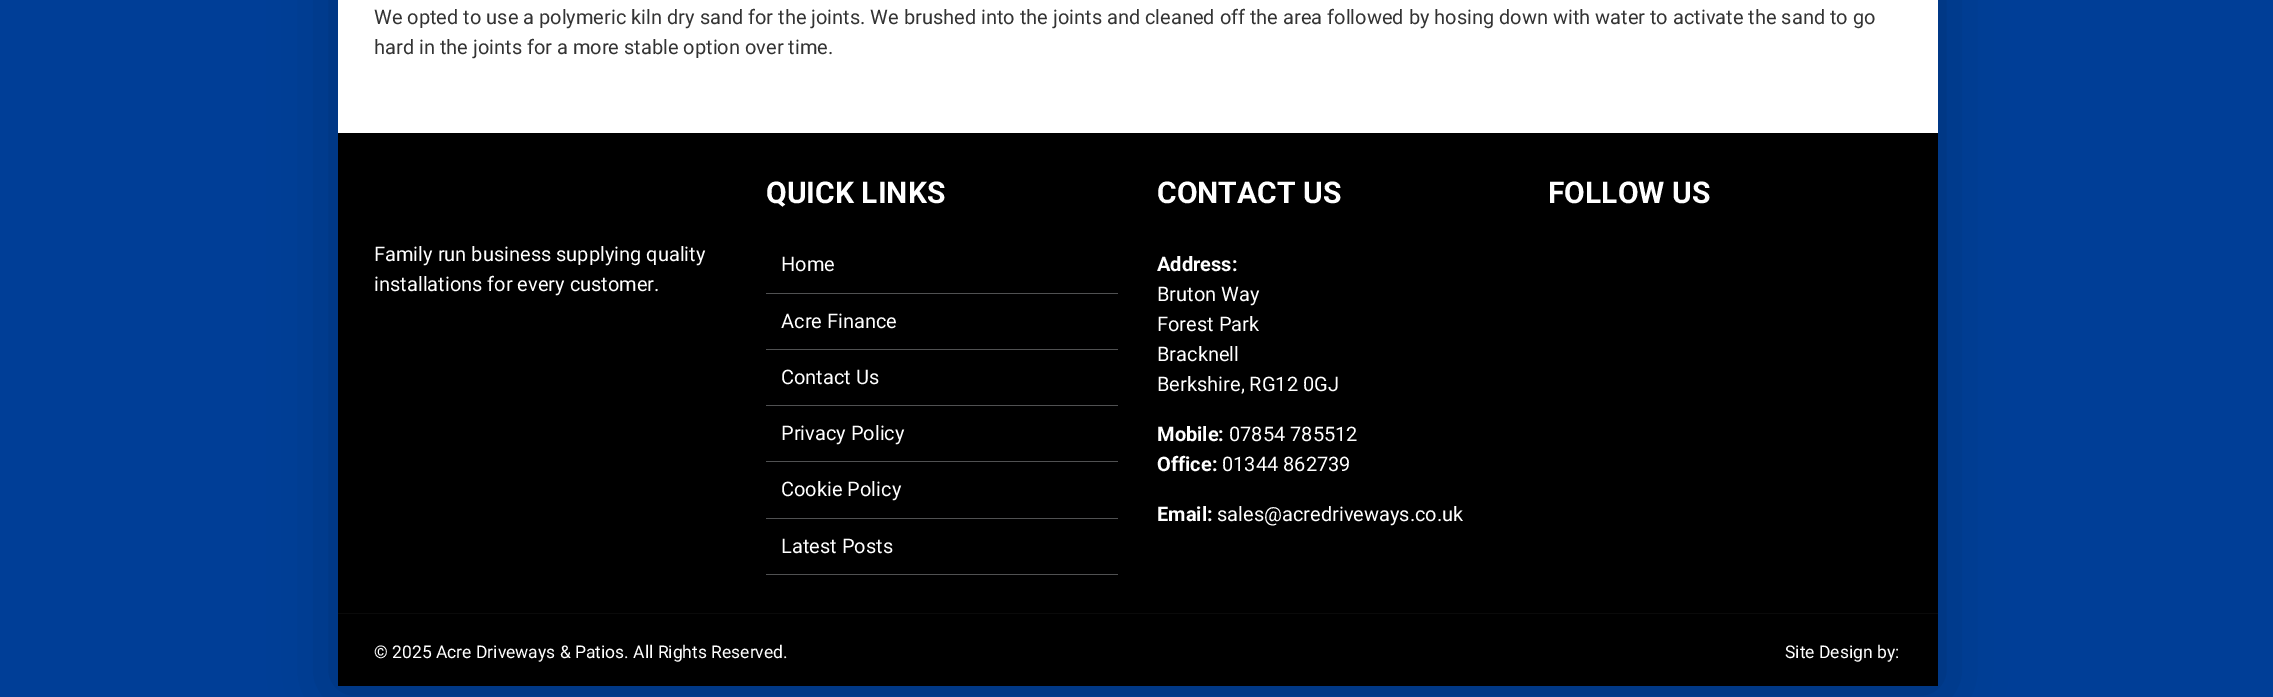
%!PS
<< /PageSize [2273 697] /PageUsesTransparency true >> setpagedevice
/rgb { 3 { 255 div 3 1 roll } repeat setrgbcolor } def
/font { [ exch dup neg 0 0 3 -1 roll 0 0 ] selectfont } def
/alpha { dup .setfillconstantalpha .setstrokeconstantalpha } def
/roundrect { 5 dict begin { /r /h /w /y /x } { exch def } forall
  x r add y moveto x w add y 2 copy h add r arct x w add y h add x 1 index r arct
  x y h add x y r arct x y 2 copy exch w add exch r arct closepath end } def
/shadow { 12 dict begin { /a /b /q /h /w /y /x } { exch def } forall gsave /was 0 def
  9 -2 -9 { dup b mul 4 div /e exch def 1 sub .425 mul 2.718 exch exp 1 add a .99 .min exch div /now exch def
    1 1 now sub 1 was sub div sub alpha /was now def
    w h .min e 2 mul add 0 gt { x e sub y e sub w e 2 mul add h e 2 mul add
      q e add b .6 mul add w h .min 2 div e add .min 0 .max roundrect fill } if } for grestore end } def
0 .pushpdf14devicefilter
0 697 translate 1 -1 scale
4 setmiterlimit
0 62 151 rgb
0 0 2273 697 rectfill
0 0 0 rgb
336 -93 1603 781 0 31 0.22 shadow
[
  [338 0 1600 133 255 255 255]
  [338 133 1600 480 0 0 0]
  [766 293 352 1 80 81 82]
  [766 349 352 1 80 81 82]
  [766 405 352 1 80 81 82]
  [766 461 352 1 80 81 82]
  [766 518 352 1 80 81 82]
  [766 574 352 1 80 81 82]
  [338 614 1600 72 0 0 0]
  [338 613 1600 1 10 10 10]
] { aload pop rgb rectfill } forall
/Roboto-Regular 20 font
51 51 51 rgb
374 24 moveto (We opted to use a polymeric kiln dry sand for the joints. We brushed into the joints and cleaned off the area followed by hosing down with water to activate the sand to go) show
374 54 moveto (hard in the joints for a more stable option over time.) show
/Roboto-Bold 30 font
255 255 255 rgb
766 203 moveto (QUICK LINKS) show
/Roboto-Regular 20 font
[
  [(Home) 781 271]
  [(Acre Finance) 781 328]
  [(Contact Us) 781 384]
  [(Privacy Policy) 781 440]
  [(Cookie Policy) 781 496]
  [(Latest Posts) 781 553]
] { aload pop moveto show } forall
/Roboto-Bold 30 font
1157 203 moveto (CONTACT US) show
/Roboto-Bold 20 font
1157 271 moveto (Address:) show
/Roboto-Regular 20 font
[
  [(Bruton Way) 1157 301]
  [(Forest Park) 1157 331]
  [(Bracknell) 1157 361]
  [(Berkshire, RG12 0GJ) 1157 391]
] { aload pop moveto show } forall
/Roboto-Bold 20 font
1157 441 moveto (Mobile:) show
/Roboto-Regular 20 font
1229 441 moveto (07854 785512) show
/Roboto-Bold 20 font
1157 471 moveto (Office:) show
/Roboto-Regular 20 font
1222 471 moveto (01344 862739) show
/Roboto-Bold 20 font
1157 521 moveto (Email:) show
/Roboto-Regular 20 font
1217 521 moveto (sales@acredriveways.co.uk) show
/Roboto-Bold 30 font
1548 203 moveto (FOLLOW US) show
/Roboto-Regular 20 font
374 261 moveto (Family run business supplying quality) show
374 291 moveto (installations for every customer.) show
/Roboto-Regular 17.5 font
374 658 moveto (© 2025 Acre Driveways & Patios. All Rights Reserved.) show
1785 658 moveto (Site Design by:) show
.poppdf14devicefilter showpage
